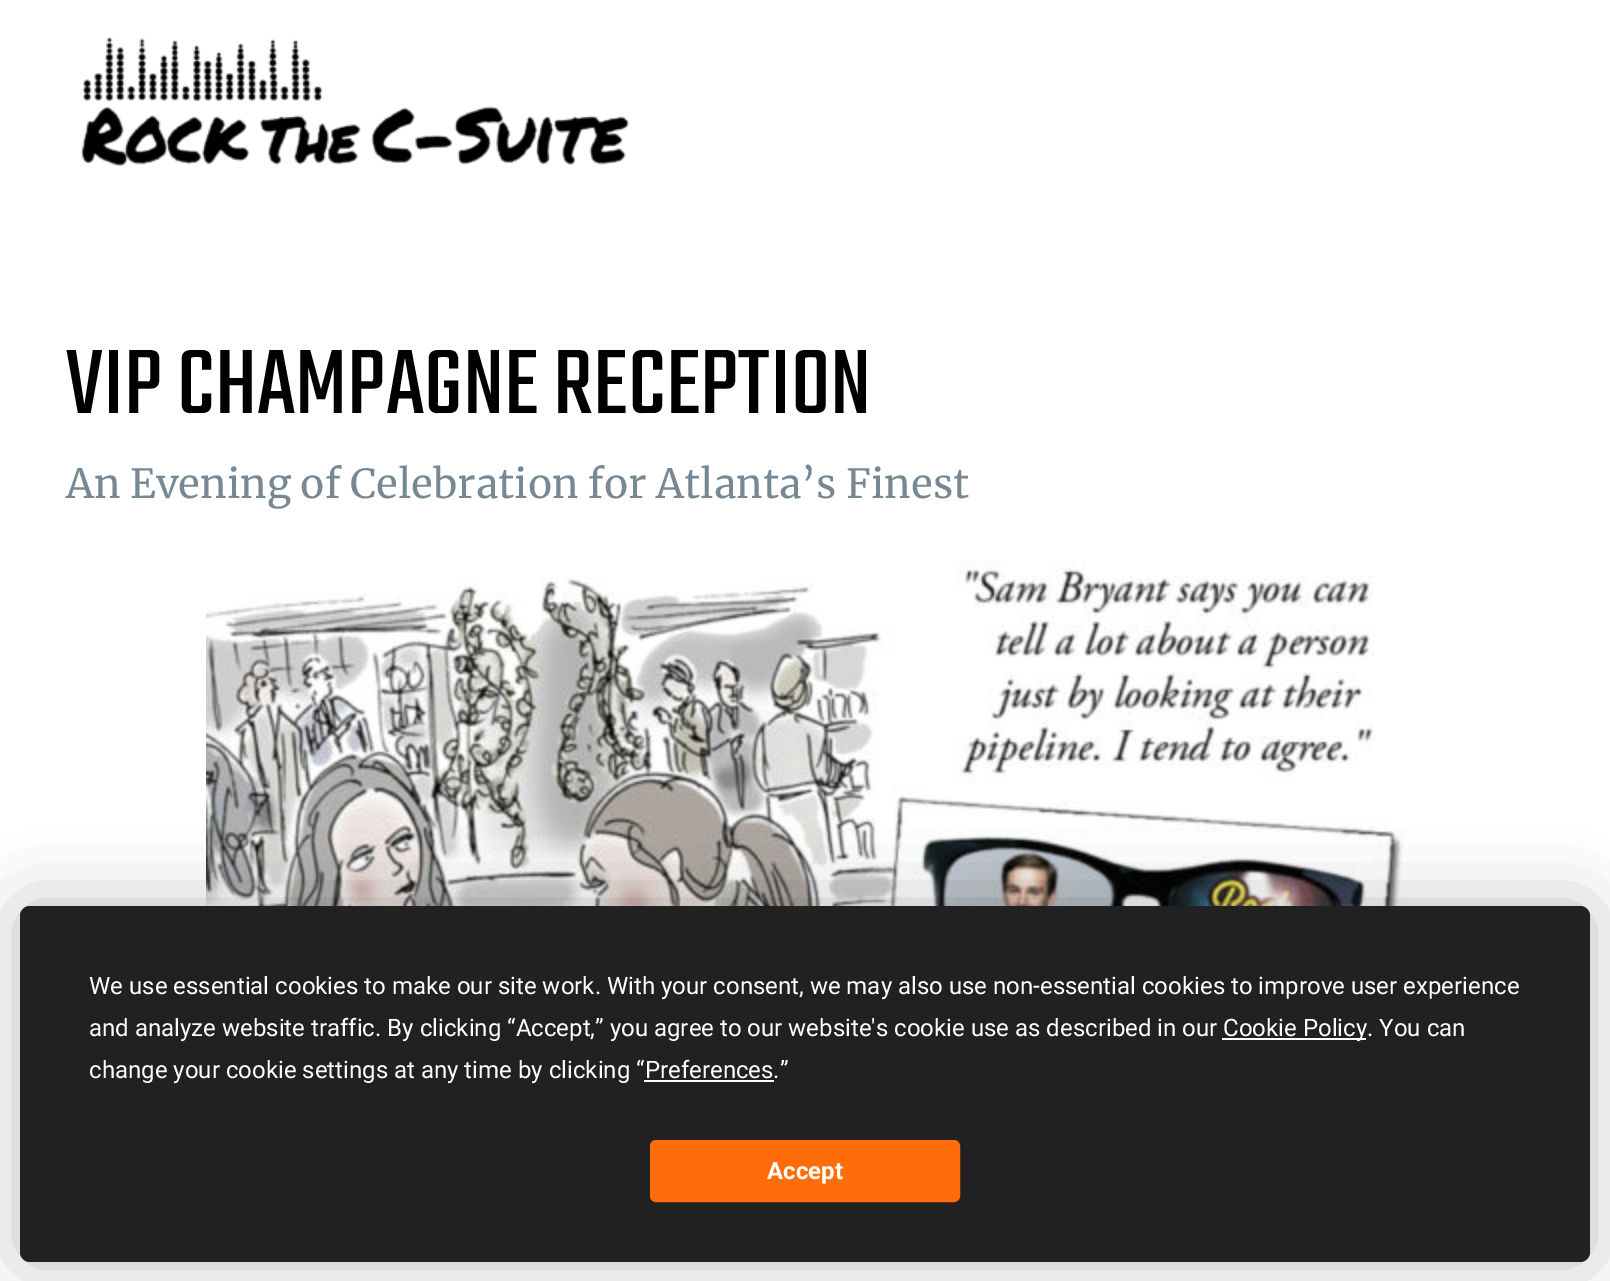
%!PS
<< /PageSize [1610 1281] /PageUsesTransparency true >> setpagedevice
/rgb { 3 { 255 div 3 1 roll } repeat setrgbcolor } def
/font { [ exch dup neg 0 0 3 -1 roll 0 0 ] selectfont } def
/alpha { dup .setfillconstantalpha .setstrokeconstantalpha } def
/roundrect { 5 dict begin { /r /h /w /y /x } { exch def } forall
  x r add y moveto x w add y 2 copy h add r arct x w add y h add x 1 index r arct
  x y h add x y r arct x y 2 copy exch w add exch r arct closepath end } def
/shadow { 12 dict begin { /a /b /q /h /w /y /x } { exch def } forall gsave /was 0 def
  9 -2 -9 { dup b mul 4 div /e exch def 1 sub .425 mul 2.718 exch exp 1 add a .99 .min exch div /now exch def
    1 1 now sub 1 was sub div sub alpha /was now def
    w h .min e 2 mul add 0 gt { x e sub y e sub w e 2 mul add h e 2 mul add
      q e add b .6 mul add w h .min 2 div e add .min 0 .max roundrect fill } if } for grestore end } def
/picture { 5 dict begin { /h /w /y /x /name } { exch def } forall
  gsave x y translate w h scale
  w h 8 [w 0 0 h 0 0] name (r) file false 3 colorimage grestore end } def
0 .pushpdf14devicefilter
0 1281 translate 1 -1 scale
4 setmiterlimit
255 255 255 rgb
0 0 1610 1281 rectfill
(img/1.rgb) 81 37 548 129 picture
(img/2.rgb) 206 560 1198 346 picture
0 0 0 rgb
20 906 1570 356 10 35 0.25 shadow
33 33 33 rgb
20 906 1570 356 10 roundrect fill
255 255 255 rgb
1222 1038 144 2 rectfill
644 1080 130 2 rectfill
255 109 10 rgb
651 1141 308 60 5 roundrect gsave fill grestore
2 setlinewidth
stroke
/Teko-Light 100.75 font
0 0 0 rgb
66 413 moveto (VIP CHAMPAGNE RECEPTION) show
/Merriweather-Regular 40 font
118 136 148 rgb
66 498 moveto (An Evening of Celebration for Atlanta’s Finest) show
/Roboto-Regular 24 font
255 255 255 rgb
[
  [(We use essential cookies to make our site work. With your consent, we may also use non-essential cookies to improve user experience) 89 994]
  [(and analyze website traffic. By clicking “Accept,” you agree to our website's cookie use as described in our) 89 1036]
  [(Cookie Policy. You can) 1223 1036]
  [(change your cookie settings at any time by clicking “Preferences.”) 89 1078]
] { aload pop moveto show } forall
/Roboto-Bold 24 font
767 1179 moveto (Accept) show
.poppdf14devicefilter showpage
